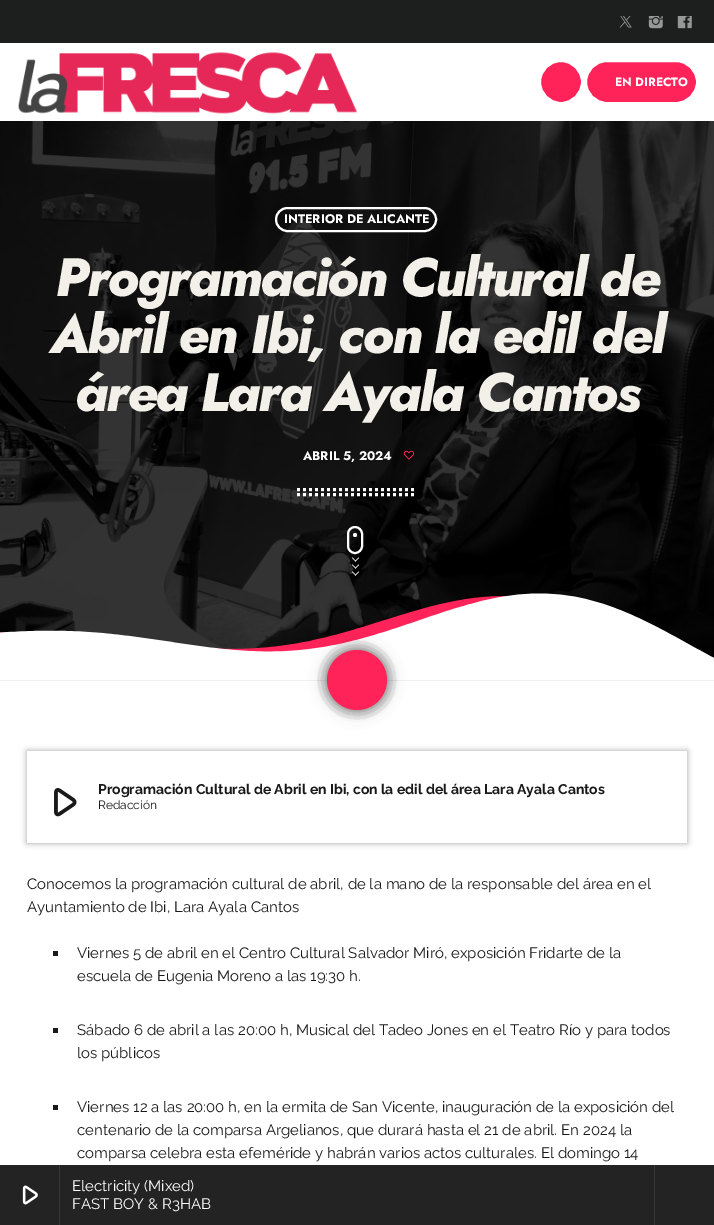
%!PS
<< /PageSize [714 1225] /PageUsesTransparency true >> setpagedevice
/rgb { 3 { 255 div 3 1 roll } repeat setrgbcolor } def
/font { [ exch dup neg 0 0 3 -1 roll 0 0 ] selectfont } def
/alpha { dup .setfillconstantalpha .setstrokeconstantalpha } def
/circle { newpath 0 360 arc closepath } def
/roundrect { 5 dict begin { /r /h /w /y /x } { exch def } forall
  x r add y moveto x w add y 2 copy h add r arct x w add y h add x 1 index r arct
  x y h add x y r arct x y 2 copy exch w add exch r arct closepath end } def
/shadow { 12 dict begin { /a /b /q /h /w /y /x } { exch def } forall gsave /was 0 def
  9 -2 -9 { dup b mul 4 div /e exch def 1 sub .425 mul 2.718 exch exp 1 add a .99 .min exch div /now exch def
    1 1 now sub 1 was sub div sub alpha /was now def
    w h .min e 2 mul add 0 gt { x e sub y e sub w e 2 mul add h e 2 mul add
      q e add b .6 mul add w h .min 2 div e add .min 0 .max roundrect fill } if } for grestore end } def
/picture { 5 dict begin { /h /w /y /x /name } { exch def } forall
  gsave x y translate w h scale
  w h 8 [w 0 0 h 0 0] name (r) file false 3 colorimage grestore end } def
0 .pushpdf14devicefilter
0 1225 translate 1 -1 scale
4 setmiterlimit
240 240 240 rgb
0 0 714 1225 rectfill
255 255 255 rgb
0 43 714 78 rectfill
29 31 31 rgb
0 0 714 43 rectfill
(img/1.rgb) 619 16 13 12 picture
(img/2.rgb) 648 16 15 13 picture
(img/3.rgb) 677 16 15 13 picture
(img/4.rgb) 18 52 340 62 picture
255 35 90 rgb
561 82 21 circle gsave fill grestore
255 255 255 rgb
2 setlinewidth
stroke
255 35 90 rgb
586 61 111 42 21 roundrect gsave fill grestore
255 255 255 rgb
stroke
(img/5.rgb) 0 121 714 537 picture
276 208 160 23 11.5 roundrect stroke
(img/6.rgb) 403 450 12 10 picture
3 setlinewidth
[3 3] 0 setdash
297 489.5 moveto 417 489.5 lineto stroke
297 494.5 moveto 417 494.5 lineto stroke
2 setlinewidth
[] 0 setdash
348 527 14 26 7 roundrect stroke
355 535 2 circle fill
358.5 557.5 moveto 359 558 lineto 355.5 561.5 lineto 355 561 lineto closepath fill
352.5 557.5 moveto 356 561 lineto 355.5 561.5 lineto 352 558 lineto closepath 358.5 564.5 moveto 359 565 lineto 355.5 568.5 lineto 355 568 lineto closepath fill
352.5 564.5 moveto 356 568 lineto 355.5 568.5 lineto 352 565 lineto closepath 358.5 571.5 moveto 359 572 lineto 355.5 575.5 lineto 355 575 lineto closepath fill
352.5 571.5 moveto 356 575 lineto 355.5 575.5 lineto 352 572 lineto closepath fill
(img/8.rgb) 0 596 507 56 picture
(img/7.rgb) 0 593 714 87 picture
0 681 714 484 rectfill
0 0 0 rgb
324 647 66 66 33 7.5 0.2 shadow
334 657 46 46 23 7.5 0.2 shadow
334 657 46 46 23 7.5 0.2 shadow
334 657 46 46 23 7.5 0.2 shadow
334 657 46 46 23 7.5 0.2 shadow
334 657 46 46 23 7.5 0.2 shadow
334 657 46 46 23 7.5 0.2 shadow
334 657 46 46 23 7.5 0.2 shadow
334 657 46 46 23 7.5 0.2 shadow
255 35 90 rgb
357 680 30 circle fill
0 0 0 rgb
27 751 660 92 0 3 0.37 shadow
255 255 255 rgb
27 751 660 92 rectfill
(img/9.rgb) 54 788 23 29 picture
[
  [53 951 5 5 25 25 25]
  [53 1028 5 5 25 25 25]
  [53 1105 5 5 25 25 25]
  [0 1165 714 60 35 35 35]
  [59 1165 1 60 55 55 55]
] { aload pop rgb rectfill } forall
(img/10.rgb) 22 1185 16 20 picture
654 1165 1 60 rectfill
/Jost-Bold 12 font
255 255 255 rgb
615 86 moveto (EN DIRECTO) show
/Jost-Bold 12.5 font
284 223 moveto (INTERIOR DE ALICANTE) show
/Jost-ExtraBoldItalic 54 font
243 240 233 rgb
55 296 moveto -2.15 0 (Programación Cultural de) ashow
50 353 moveto -2.15 0 (Abril en Ibi, con la edil del) ashow
75 411 moveto -2.15 0 (área Lara Ayala Cantos) ashow
/Jost-Bold 12.5 font
255 255 255 rgb
303 460 moveto (ABRIL 5, 2024) show
/Raleway-Bold 14 font
25 25 25 rgb
98 794 moveto (Programación Cultural de Abril en Ibi, con la edil del área Lara Ayala Cantos) show
/Raleway-Regular 12 font
98 809 moveto (Redacción) show
/Raleway-Regular 15 font
[
  [(Conocemos la programación cultural de abril, de la mano de la responsable del área en el) 27 889]
  [(Ayuntamiento de Ibi, Lara Ayala Cantos) 27 912]
  [(Viernes 5 de abril en el Centro Cultural Salvador Miró, exposición Fridarte de la) 77 958]
  [(escuela de Eugenia Moreno a las 19:30 h.) 77 981]
  [(Sábado 6 de abril a las 20:00 h, Musical del Tadeo Jones en el Teatro Río y para todos) 77 1035]
  [(los públicos) 77 1058]
  [(Viernes 12 a las 20:00 h, en la ermita de San Vicente, inauguración de la exposición del) 77 1112]
  [(centenario de la comparsa Argelianos, que durará hasta el 21 de abril. En 2024 la) 77 1135]
  [(comparsa celebra esta efeméride y habrán varios actos culturales. El domingo 14) 77 1158]
] { aload pop moveto show } forall
255 255 255 rgb
72 1191 moveto (Electricity \(Mixed\)) show
72 1209 moveto (FAST BOY & R3HAB) show
.poppdf14devicefilter showpage
